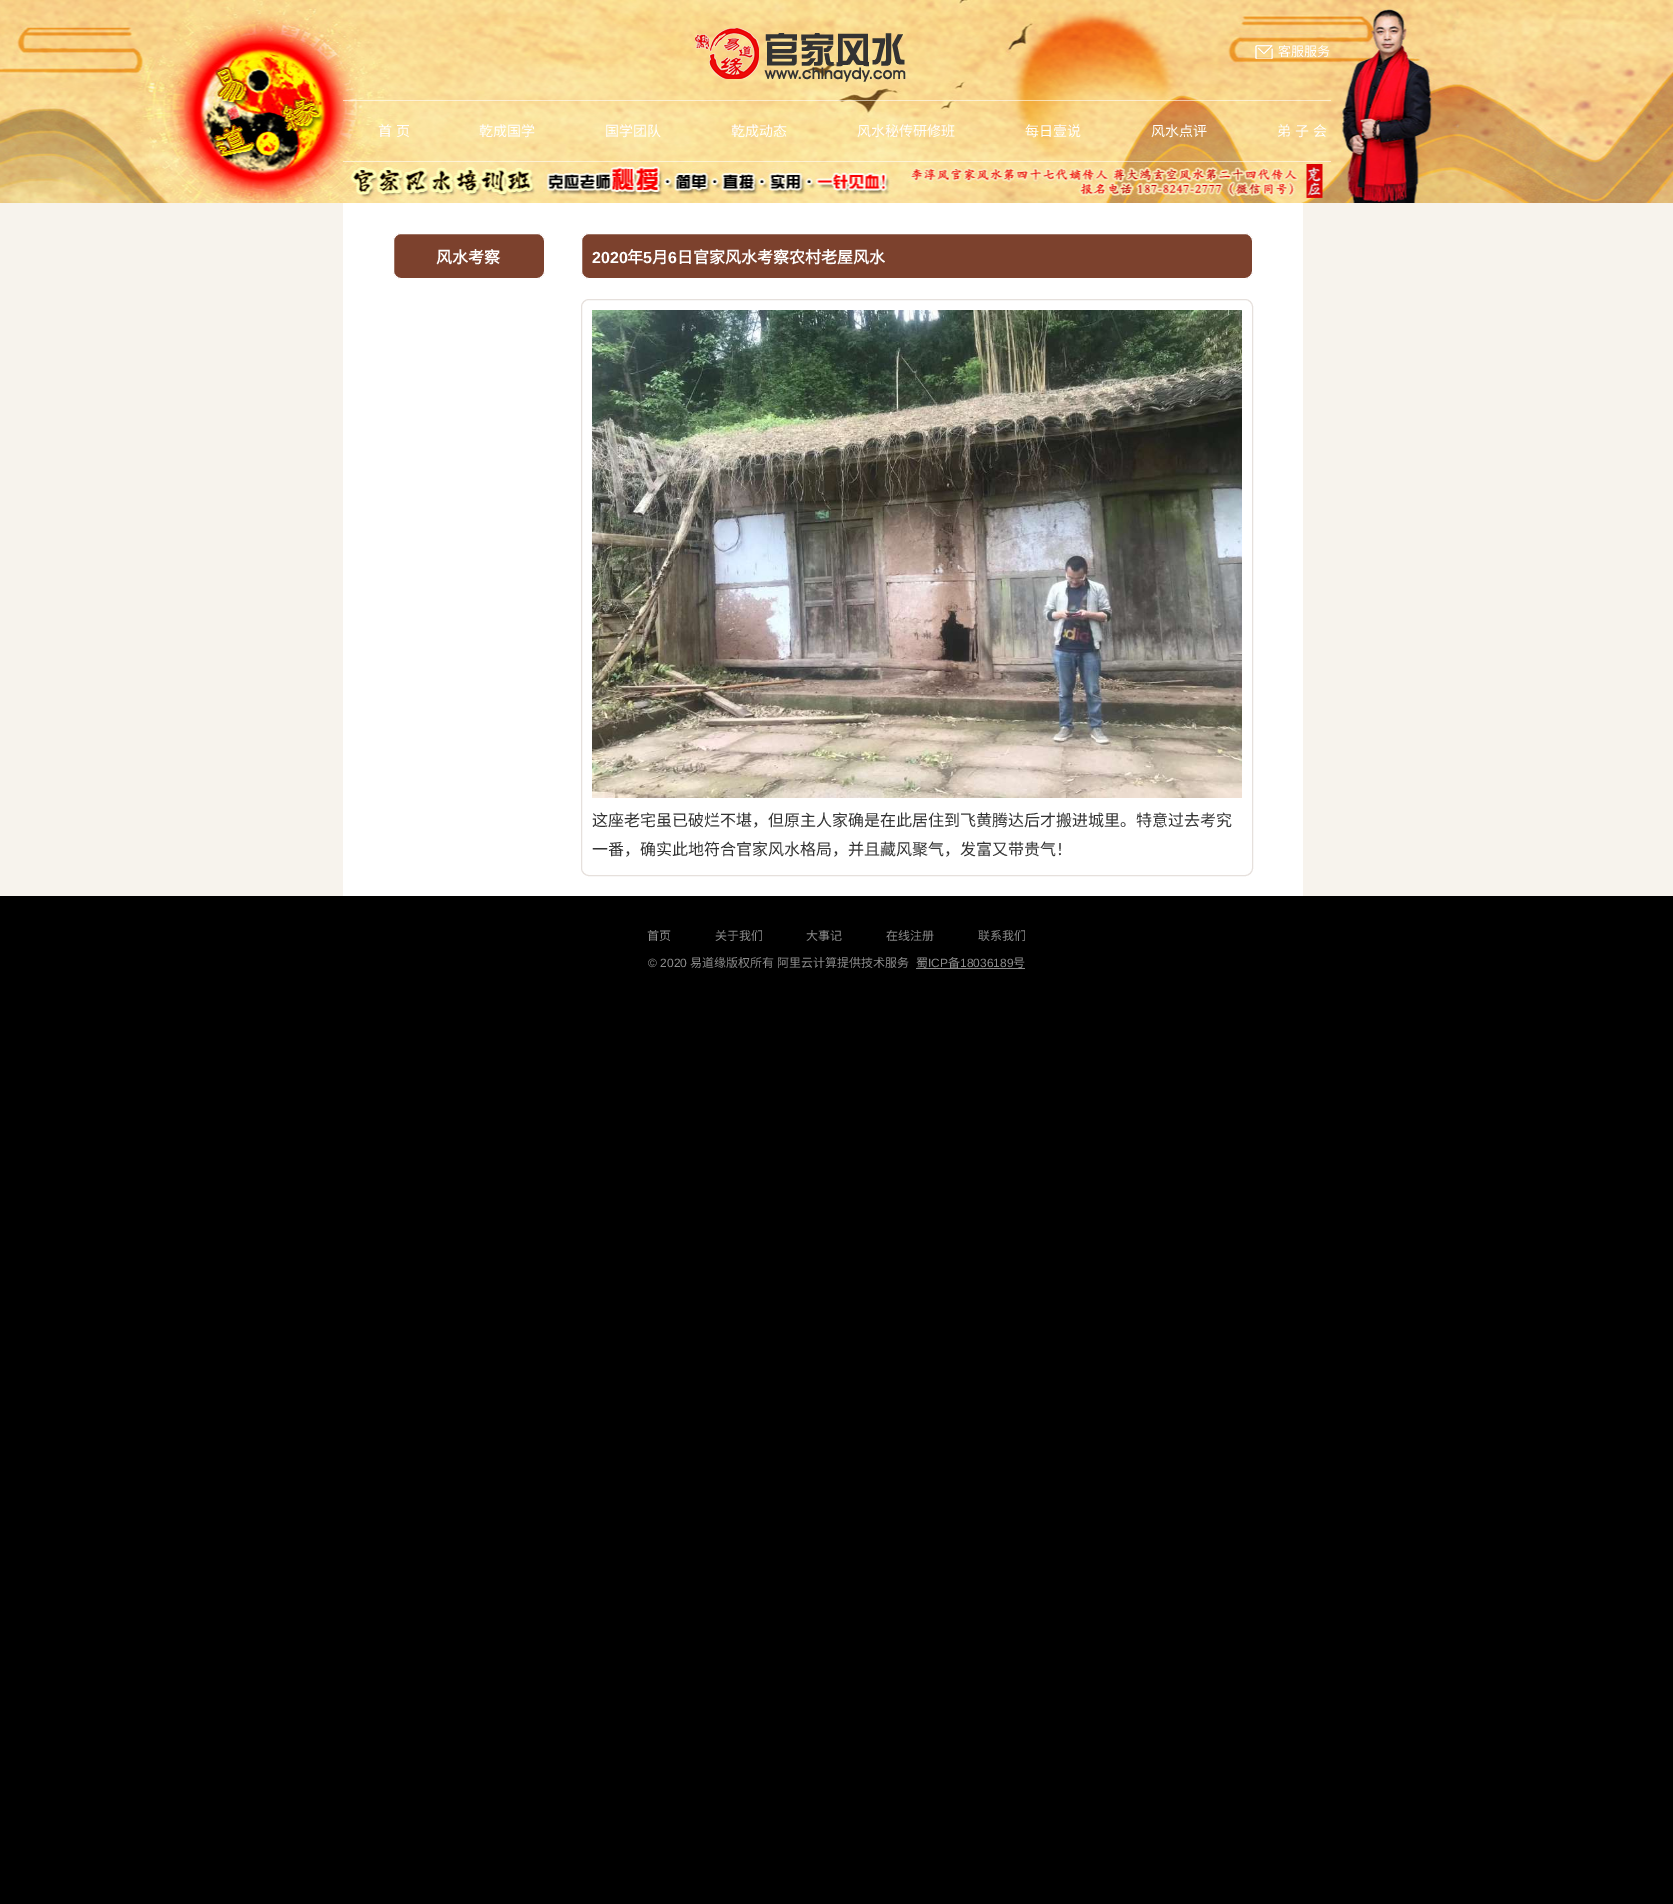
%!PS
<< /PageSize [1673 1904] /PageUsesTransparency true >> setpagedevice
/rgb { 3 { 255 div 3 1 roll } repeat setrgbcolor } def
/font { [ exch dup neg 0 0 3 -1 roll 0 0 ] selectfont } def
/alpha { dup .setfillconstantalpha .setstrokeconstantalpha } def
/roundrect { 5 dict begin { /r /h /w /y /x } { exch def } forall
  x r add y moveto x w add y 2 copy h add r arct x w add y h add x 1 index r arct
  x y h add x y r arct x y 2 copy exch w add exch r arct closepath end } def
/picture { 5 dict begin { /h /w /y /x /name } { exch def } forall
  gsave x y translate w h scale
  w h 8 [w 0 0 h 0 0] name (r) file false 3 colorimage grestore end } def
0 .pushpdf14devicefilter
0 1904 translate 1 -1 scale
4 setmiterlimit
0 0 0 rgb
0 0 1673 1904 rectfill
(img/1.rgb) 0 0 1673 203 picture
(img/2.rgb) 695 28 211 54 picture
(img/3.rgb) 1255 45 18 14 picture
0.6 alpha
[
  [343 100 988 1 255 255 255]
  [343 161 988 1 255 255 255]
] { aload pop rgb rectfill } forall
1 alpha
[
  [0 203 1673 693 247 243 237]
  [343 203 960 693 255 255 255]
] { aload pop rgb rectfill } forall
124 65 45 rgb
393.5 233.5 151 45 7.5 roundrect gsave fill grestore
255 255 255 rgb
stroke
124 65 45 rgb
581.5 233.5 671 45 7.5 roundrect gsave fill grestore
255 255 255 rgb
stroke
230 224 220 rgb
581.5 299.5 671 576 7.5 roundrect stroke
(img/4.rgb) 592 310 650 488 picture
141 141 141 rgb
916 968 109 1 rectfill
/NotoSansCJKSC-Regular 13 font
255 255 255 rgb
1278 56 moveto (客服服务) show
/NotoSansCJKSC-Regular 14 font
378 136 moveto 1 0 32 (首 页) widthshow
[
  [(乾成国学) 479 136]
  [(国学团队) 605 136]
  [(乾成动态) 731 136]
  [(风水秘传研修班) 857 136]
  [(每日壹说) 1025 136]
  [(风水点评) 1151 136]
] { aload pop moveto show } forall
1277 136 moveto 1 0 32 (弟 子 会) widthshow
/NotoSansCJKSC-Bold 16 font
436 263 moveto (风水考察) show
/LiberationSans-Bold 16 font
592 263 moveto (2020) show
/NotoSansCJKSC-Bold 16 font
627 263 moveto (年) show
/LiberationSans-Bold 16 font
643 263 moveto (5) show
/NotoSansCJKSC-Bold 16 font
652 263 moveto (月) show
/LiberationSans-Bold 16 font
668 263 moveto (6) show
/NotoSansCJKSC-Bold 16 font
677 263 moveto (日官家风水考察农村老屋风水) show
/NotoSansCJKSC-Regular 16 font
51 51 51 rgb
592 826 moveto (这座老宅虽已破烂不堪，但原主人家确是在此居住到飞黄腾达后才搬进城里。特意过去考究) show
592 855 moveto (一番，确实此地符合官家风水格局，并且藏风聚气，发富又带贵气！) show
/NotoSansCJKSC-Regular 12 font
141 141 141 rgb
[
  [(首页) 647 940]
  [(关于我们) 715 940]
  [(大事记) 806 940]
  [(在线注册) 886 940]
  [(联系我们) 978 940]
] { aload pop moveto show } forall
/LiberationSans-Regular 12 font
648 967 moveto (© 2020) show
/NotoSansCJKSC-Regular 12 font
[
  [(易道缘版权所有) 690 967]
  [(阿里云计算提供技术服务) 777 967]
  [(蜀) 916 967]
] { aload pop moveto show } forall
/LiberationSans-Regular 12 font
928 967 moveto (ICP) show
/NotoSansCJKSC-Regular 12 font
948 967 moveto (备) show
/LiberationSans-Regular 12 font
960 967 moveto (18036189) show
/NotoSansCJKSC-Regular 12 font
1013 967 moveto (号) show
.poppdf14devicefilter showpage
